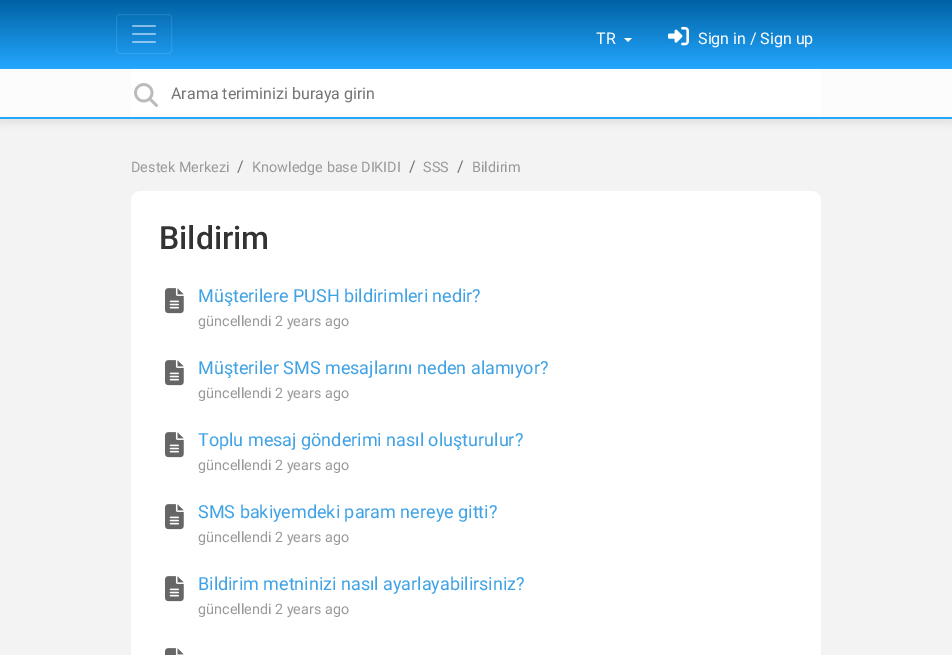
%!PS
<< /PageSize [952 655] /PageUsesTransparency true >> setpagedevice
/rgb { 3 { 255 div 3 1 roll } repeat setrgbcolor } def
/font { [ exch dup neg 0 0 3 -1 roll 0 0 ] selectfont } def
/alpha { dup .setfillconstantalpha .setstrokeconstantalpha } def
/roundrect { 5 dict begin { /r /h /w /y /x } { exch def } forall
  x r add y moveto x w add y 2 copy h add r arct x w add y h add x 1 index r arct
  x y h add x y r arct x y 2 copy exch w add exch r arct closepath end } def
/shadow { 12 dict begin { /a /b /q /h /w /y /x } { exch def } forall gsave /was 0 def
  9 -2 -9 { dup b mul 4 div /e exch def 1 sub .425 mul 2.718 exch exp 1 add a .99 .min exch div /now exch def
    1 1 now sub 1 was sub div sub alpha /was now def
    w h .min e 2 mul add 0 gt { x e sub y e sub w e 2 mul add h e 2 mul add
      q e add b .6 mul add w h .min 2 div e add .min 0 .max roundrect fill } if } for grestore end } def
/picture { 5 dict begin { /h /w /y /x /name } { exch def } forall
  gsave x y translate w h scale
  w h 8 [w 0 0 h 0 0] name (r) file false 3 colorimage grestore end } def
0 .pushpdf14devicefilter
0 655 translate 1 -1 scale
4 setmiterlimit
243 243 243 rgb
0 0 952 655 rectfill
gsave 0 0 moveto 952 0 lineto 952 69 lineto 0 69 lineto closepath clip newpath
<< /ShadingType 2 /ColorSpace /DeviceRGB /Coords [476 0 476 69] /Extend [true true] /Function << /FunctionType 2 /Domain [0 1] /C0 [0 0.384 0.643] /C1 [0.141 0.655 1] /N 1 >> >> shfill grestore
0.1 alpha
255 255 255 rgb
116.5 14.5 55 39 3.5 roundrect stroke
1 alpha
(img/1.rgb) 132 25 24 18 picture
624 38 moveto 632 38 lineto 628 42 lineto closepath fill
(img/2.rgb) 668 26 21 20 picture
100 100 100 rgb
0 74 952 50 0 2.5 0.1 shadow
[
  [0 69 952 48 252 252 252]
  [0 117 952 2 36 167 255]
  [131 69 690 48 255 255 255]
] { aload pop rgb rectfill } forall
(img/3.rgb) 134 83 24 24 picture
131 191 690 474 10 roundrect fill
(img/4.rgb) 165 288 19 26 picture
(img/4.rgb) 165 360 19 26 picture
(img/4.rgb) 165 432 19 26 picture
(img/4.rgb) 165 504 19 26 picture
(img/4.rgb) 165 576 19 26 picture
(img/5.rgb) 165 648 19 7 picture
/Roboto-Regular 16 font
596 44 moveto (TR) show
698 44 moveto (Sign in / Sign up) show
117 117 117 rgb
171 99 moveto (Arama teriminizi buraya girin) show
/Roboto-Regular 14.4 font
153 153 153 rgb
131 172 moveto (Destek Merkezi) show
/Roboto-Regular 16 font
108 117 125 rgb
237 172 moveto (/) show
/Roboto-Regular 14.4 font
153 153 153 rgb
252 172 moveto (Knowledge base DIKIDI) show
/Roboto-Regular 16 font
108 117 125 rgb
409 172 moveto (/) show
/Roboto-Regular 14.4 font
153 153 153 rgb
423 172 moveto (SSS) show
/Roboto-Regular 16 font
108 117 125 rgb
457 172 moveto (/) show
/Roboto-Regular 14.4 font
153 153 153 rgb
472 172 moveto (Bildirim) show
/Roboto-Medium 32 font
51 51 51 rgb
159 249 moveto (Bildirim) show
/Roboto-Regular 18 font
63 162 228 rgb
198 302 moveto (Müşterilere PUSH bildirimleri nedir?) show
/Roboto-Regular 14.4 font
153 153 153 rgb
198 326 moveto (güncellendi 2 years ago) show
/Roboto-Regular 18 font
63 162 228 rgb
198 374 moveto (Müşteriler SMS mesajlarını neden alamıyor?) show
/Roboto-Regular 14.4 font
153 153 153 rgb
198 398 moveto (güncellendi 2 years ago) show
/Roboto-Regular 18 font
63 162 228 rgb
198 446 moveto (Toplu mesaj gönderimi nasıl oluşturulur?) show
/Roboto-Regular 14.4 font
153 153 153 rgb
198 470 moveto (güncellendi 2 years ago) show
/Roboto-Regular 18 font
63 162 228 rgb
198 518 moveto (SMS bakiyemdeki param nereye gitti?) show
/Roboto-Regular 14.4 font
153 153 153 rgb
198 542 moveto (güncellendi 2 years ago) show
/Roboto-Regular 18 font
63 162 228 rgb
198 590 moveto (Bildirim metninizi nasıl ayarlayabilirsiniz?) show
/Roboto-Regular 14.4 font
153 153 153 rgb
198 614 moveto (güncellendi 2 years ago) show
.poppdf14devicefilter showpage
